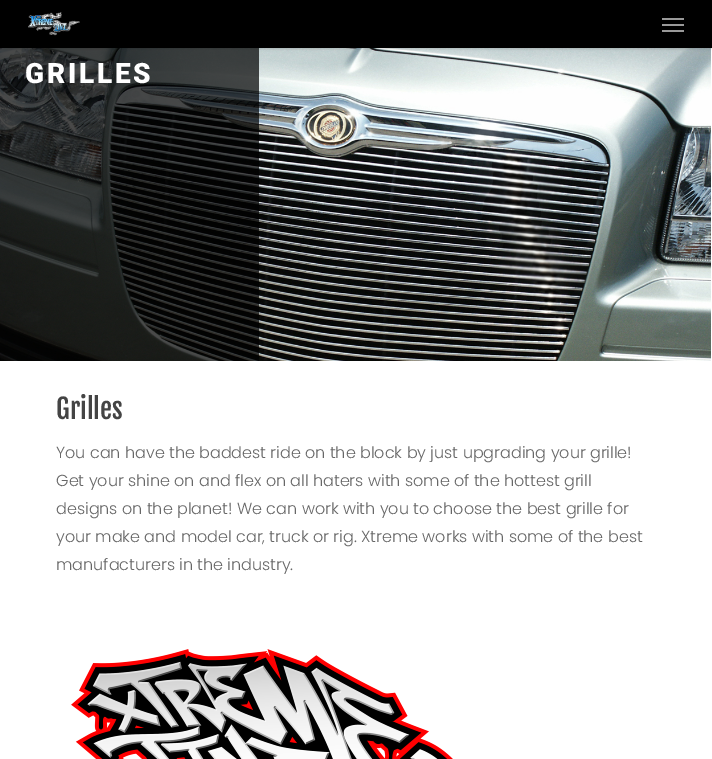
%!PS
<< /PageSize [712 759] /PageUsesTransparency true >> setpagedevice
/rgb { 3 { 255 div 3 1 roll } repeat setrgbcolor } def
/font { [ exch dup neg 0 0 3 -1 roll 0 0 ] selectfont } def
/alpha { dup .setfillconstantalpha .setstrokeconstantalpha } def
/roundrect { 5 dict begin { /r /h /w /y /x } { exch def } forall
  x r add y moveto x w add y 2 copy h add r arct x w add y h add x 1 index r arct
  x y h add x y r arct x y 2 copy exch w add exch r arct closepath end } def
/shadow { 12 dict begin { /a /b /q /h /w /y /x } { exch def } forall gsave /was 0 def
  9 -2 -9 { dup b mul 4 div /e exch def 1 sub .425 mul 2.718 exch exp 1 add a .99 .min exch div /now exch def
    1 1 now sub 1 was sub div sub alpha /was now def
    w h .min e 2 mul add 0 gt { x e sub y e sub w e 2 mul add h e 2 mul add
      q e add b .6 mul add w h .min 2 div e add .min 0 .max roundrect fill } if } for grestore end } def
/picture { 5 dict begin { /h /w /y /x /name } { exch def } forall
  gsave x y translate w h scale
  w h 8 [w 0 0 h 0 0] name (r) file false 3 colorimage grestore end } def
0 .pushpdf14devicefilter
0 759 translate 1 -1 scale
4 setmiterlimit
255 255 255 rgb
0 0 712 759 rectfill
(img/2.rgb) 0 48 711 313 picture
0.71 alpha
0 0 0 rgb
0 48 259 313 rectfill
1 alpha
0 0 712 48 0 1.5 0.22 shadow
0 0 712 48 rectfill
(img/1.rgb) 28 12 52 24 picture
[
  [662 18 22 2 153 153 153]
  [662 30 22 2 153 153 153]
  [662 24 22 2 153 153 153]
] { aload pop rgb rectfill } forall
(img/3.rgb) 71 649 382 110 picture
/Roboto-Black 28 font
255 255 255 rgb
25 83 moveto 2.75 0 (GRILLES) ashow
/FjallaOne-Regular 27 font
68 68 68 rgb
56 419 moveto (Grilles) show
/Poppins-Light 16 font
103 103 103 rgb
[
  [(You can have the baddest ride on the block by just upgrading your grille!) 56 458]
  [(Get your shine on and flex on all haters with some of the hottest grill) 56 486]
  [(designs on the planet! We can work with you to choose the best grille for) 56 514]
  [(your make and model car, truck or rig. Xtreme works with some of the best) 56 542]
  [(manufacturers in the industry.) 56 570]
] { aload pop moveto show } forall
.poppdf14devicefilter showpage
